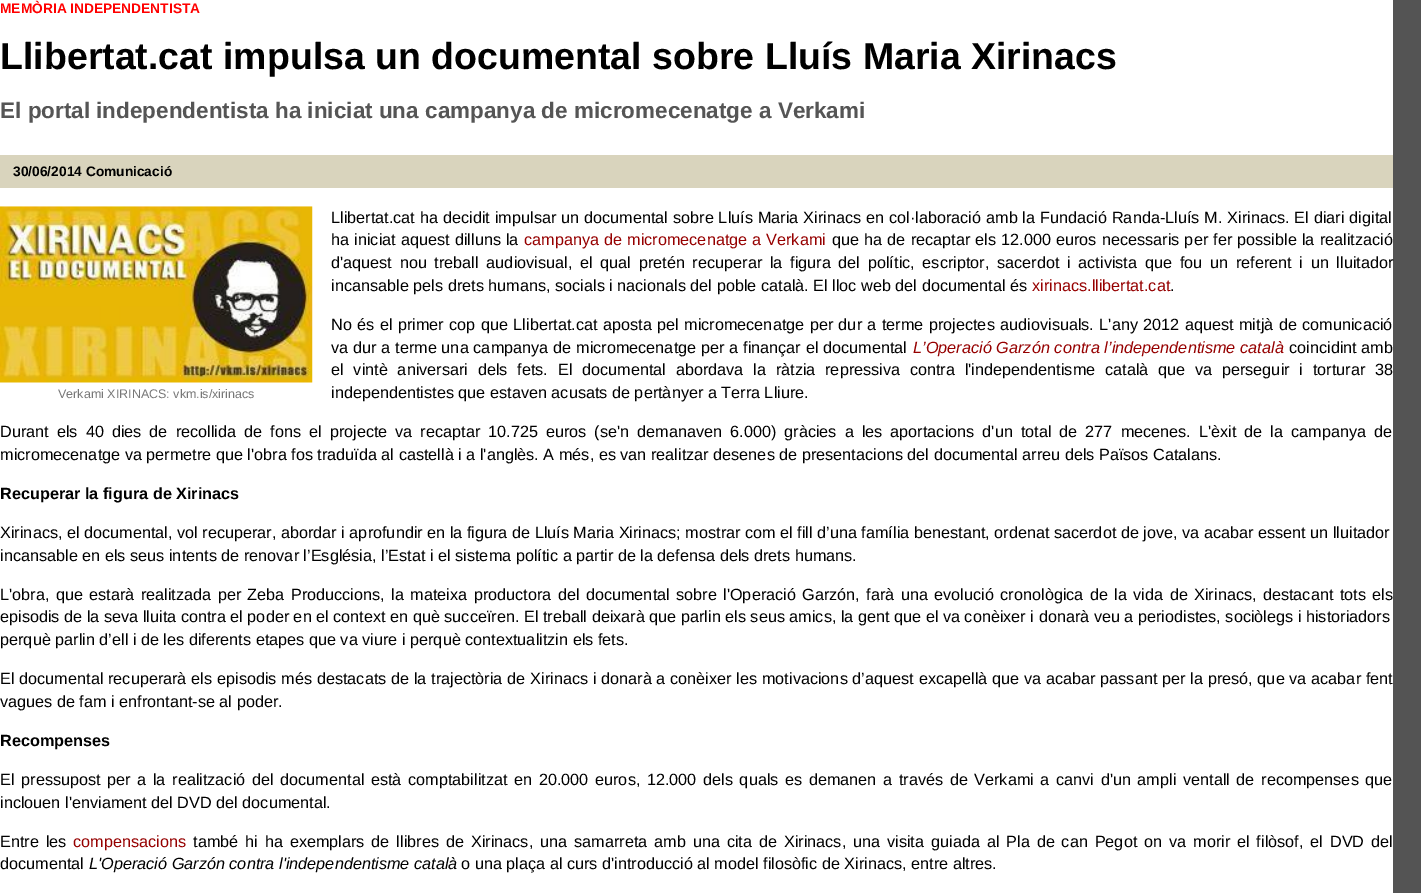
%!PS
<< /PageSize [1421 893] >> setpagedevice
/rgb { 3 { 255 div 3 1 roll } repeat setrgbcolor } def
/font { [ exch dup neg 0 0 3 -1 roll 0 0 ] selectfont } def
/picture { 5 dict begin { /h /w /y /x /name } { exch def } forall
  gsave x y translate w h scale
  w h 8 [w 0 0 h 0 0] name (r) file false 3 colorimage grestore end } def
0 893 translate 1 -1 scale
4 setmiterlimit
84 84 84 rgb
0 0 1421 893 rectfill
255 255 255 rgb
0 0 1393 893 rectfill
217 212 189 rgb
0 155 1393 33 rectfill
(img/1.rgb) 0 206 313 177 picture
/LiberationSans-Bold 13.75 font
255 0 0 rgb
0 13 moveto (MEMÒRIA INDEPENDENTISTA) show
/LiberationSans-Bold 37.5 font
0 0 0 rgb
0 69 moveto (Llibertat.cat impulsa un documental sobre Lluís Maria Xirinacs) show
/LiberationSans-Bold 22.5 font
85 85 85 rgb
0 118 moveto (El portal independentista ha iniciat una campanya de micromecenatge a Verkami) show
/LiberationSans-Bold 13.75 font
0 0 0 rgb
13 176 moveto (30/06/2014 Comunicació) show
/LiberationSans-Regular 16.25 font
331 223 moveto 0.4 0 32 (Llibertat.cat ha decidit impulsar un documental sobre Lluís Maria Xirinacs en col·laboració amb la Fundació Randa-Lluís M. Xirinacs. El diari digital) widthshow
331 245 moveto 0.6 0 32 (ha iniciat aquest dilluns la) widthshow
150 0 0 rgb
524 245 moveto 0.5 0 32 (campanya de micromecenatge a Verkami) widthshow
0 0 0 rgb
832 245 moveto 0.6 0 32 (que ha de recaptar els 12.000 euros necessaris per fer possible la realització) widthshow
331 268 moveto 3.2 0 32 (d'aquest nou treball audiovisual, el qual pretén recuperar la figura del polític, escriptor, sacerdot i activista que fou un referent i un lluitador) widthshow
331 291 moveto (incansable pels drets humans, socials i nacionals del poble català. El lloc web del documental és) show
150 0 0 rgb
1032 291 moveto (xirinacs.llibertat.cat) show
0 0 0 rgb
1170 291 moveto (.) show
331 330 moveto 0.9 0 32 (No és el primer cop que Llibertat.cat aposta pel micromecenatge per dur a terme projectes audiovisuals. L'any 2012 aquest mitjà de comunicació) widthshow
331 353 moveto 0.3 0 32 (va dur a terme una campanya de micromecenatge per a finançar el documental) widthshow
/LiberationSans-Italic 16.25 font
150 0 0 rgb
913 353 moveto 0.3 0 32 (L’Operació Garzón contra l’independentisme català) widthshow
/LiberationSans-Regular 16.25 font
0 0 0 rgb
1289 353 moveto (coincidint amb) show
331 375 moveto 5.25 0 32 (el vintè aniversari dels fets. El documental abordava la ràtzia repressiva contra l'independentisme català que va perseguir i torturar 38) widthshow
331 398 moveto (independentistes que estaven acusats de pertànyer a Terra Lliure.) show
0 437 moveto 3.5 0 32 (Durant els 40 dies de recollida de fons el projecte va recaptar 10.725 euros \(se'n demanaven 6.000\) gràcies a les aportacions d'un total de 277 mecenes. L'èxit de la campanya de) widthshow
0 460 moveto (micromecenatge va permetre que l'obra fos traduïda al castellà i a l'anglès. A més, es van realitzar desenes de presentacions del documental arreu dels Països Catalans.) show
/LiberationSans-Bold 16.25 font
0 499 moveto (Recuperar la figura de Xirinacs) show
/LiberationSans-Regular 16.25 font
0 538 moveto (Xirinacs, el documental, vol recuperar, abordar i aprofundir en la figura de Lluís Maria Xirinacs; mostrar com el fill d’una família benestant, ordenat sacerdot de jove, va acabar essent un lluitador) show
0 561 moveto (incansable en els seus intents de renovar l’Església, l’Estat i el sistema polític a partir de la defensa dels drets humans.) show
0 600 moveto 1.9 0 32 (L'obra, que estarà realitzada per Zeba Produccions, la mateixa productora del documental sobre l'Operació Garzón, farà una evolució cronològica de la vida de Xirinacs, destacant tots els) widthshow
0 622 moveto (episodis de la seva lluita contra el poder en el context en què succeïren. El treball deixarà que parlin els seus amics, la gent que el va conèixer i donarà veu a periodistes, sociòlegs i historiadors) show
0 645 moveto (perquè parlin d’ell i de les diferents etapes que va viure i perquè contextualitzin els fets.) show
0 684 moveto 0.25 0 32 (El documental recuperarà els episodis més destacats de la trajectòria de Xirinacs i donarà a conèixer les motivacions d’aquest excapellà que va acabar passant per la presó, que va acabar fent) widthshow
0 707 moveto (vagues de fam i enfrontant-se al poder.) show
/LiberationSans-Bold 16.25 font
0 746 moveto (Recompenses) show
/LiberationSans-Regular 16.25 font
0 785 moveto 2.1 0 32 (El pressupost per a la realització del documental està comptabilitzat en 20.000 euros, 12.000 dels quals es demanen a través de Verkami a canvi d'un ampli ventall de recompenses que) widthshow
0 808 moveto (inclouen l'enviament del DVD del documental.) show
0 847 moveto 2.4 0 32 (Entre les) widthshow
150 0 0 rgb
73 847 moveto (compensacions) show
0 0 0 rgb
193 847 moveto 2.4 0 32 (també hi ha exemplars de llibres de Xirinacs, una samarreta amb una cita de Xirinacs, una visita guiada al Pla de can Pegot on va morir el filòsof, el DVD del) widthshow
0 869 moveto (documental) show
/LiberationSans-Italic 16.25 font
89 869 moveto (L'Operació Garzón contra l'independentisme català) show
/LiberationSans-Regular 16.25 font
461 869 moveto (o una plaça al curs d'introducció al model filosòfic de Xirinacs, entre altres.) show
/LiberationSans-Regular 12.5 font
119 119 119 rgb
58 398 moveto (Verkami XIRINACS: vkm.is/xirinacs) show
showpage
